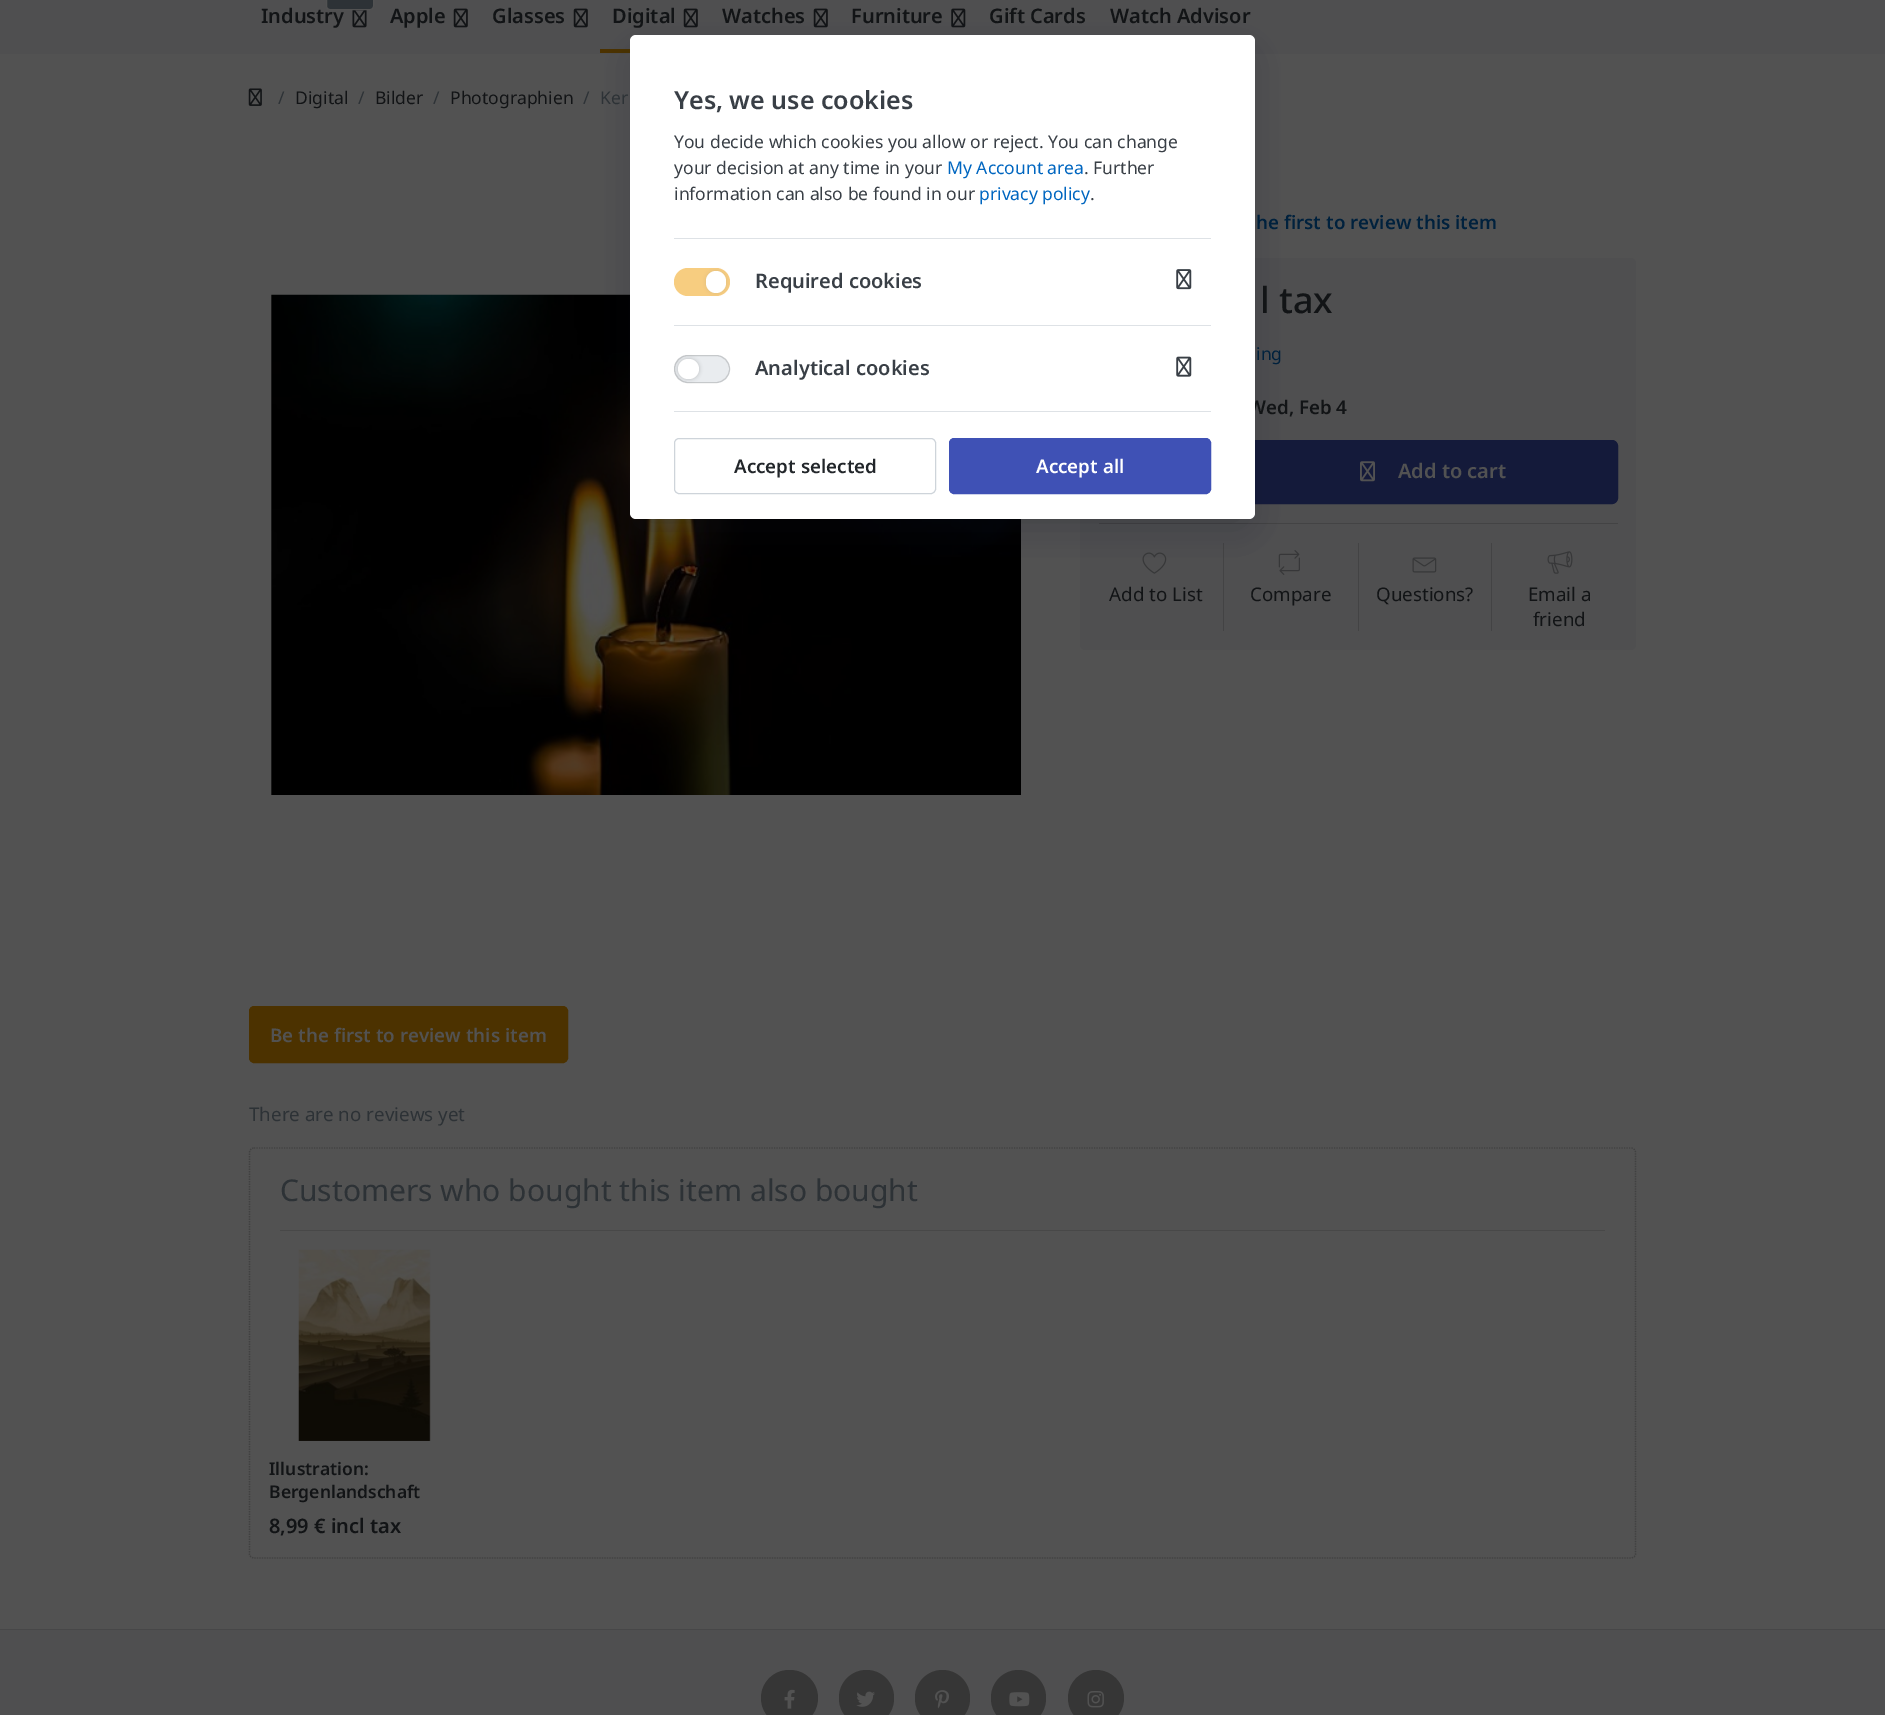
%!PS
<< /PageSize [1885 1715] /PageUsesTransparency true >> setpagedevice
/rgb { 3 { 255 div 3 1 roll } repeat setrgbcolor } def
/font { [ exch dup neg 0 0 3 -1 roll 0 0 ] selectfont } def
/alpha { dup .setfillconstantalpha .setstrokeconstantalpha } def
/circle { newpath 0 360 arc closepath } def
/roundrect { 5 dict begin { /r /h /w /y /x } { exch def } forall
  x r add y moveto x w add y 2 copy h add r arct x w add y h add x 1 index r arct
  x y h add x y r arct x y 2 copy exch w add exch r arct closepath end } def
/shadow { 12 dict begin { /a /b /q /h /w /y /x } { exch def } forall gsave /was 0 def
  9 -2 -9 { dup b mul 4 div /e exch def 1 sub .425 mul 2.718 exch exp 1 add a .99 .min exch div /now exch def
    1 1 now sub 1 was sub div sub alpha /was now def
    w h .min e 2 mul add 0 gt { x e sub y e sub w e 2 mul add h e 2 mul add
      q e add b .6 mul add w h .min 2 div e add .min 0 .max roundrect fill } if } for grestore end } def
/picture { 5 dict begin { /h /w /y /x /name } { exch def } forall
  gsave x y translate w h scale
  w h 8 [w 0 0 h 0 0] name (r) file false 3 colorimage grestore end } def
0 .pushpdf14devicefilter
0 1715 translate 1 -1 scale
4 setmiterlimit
82 82 82 rgb
0 0 1885 1715 rectfill
79 79 80 rgb
0 0 1885 54 rectfill
(img/1.rgb) 352 10 15 18 picture
(img/2.rgb) 453 8 15 20 picture
(img/2.rgb) 573 8 15 20 picture
(img/2.rgb) 683 8 15 20 picture
76 50 0 rgb
600 49 30 4 rectfill
(img/2.rgb) 813 8 15 20 picture
(img/3.rgb) 951 8 15 20 picture
(img/4.rgb) 248 88 14 18 picture
(img/5.rgb) 271 294 750 501 picture
79 79 80 rgb
1080 258 556 392 5 roundrect fill
20 26 58 rgb
1249.5 440.5 368 63 5.5 roundrect gsave fill grestore
stroke
(img/6.rgb) 1360 461 15 21 picture
67 67 68 rgb
1099 523 519 1 rectfill
1223 543 1 88 rectfill
(img/7.rgb) 1142 552 25 22 picture
1358 543 1 88 rectfill
(img/8.rgb) 1278 550 22 25 picture
1491 543 1 88 rectfill
(img/9.rgb) 1412 557 25 16 picture
(img/10.rgb) 1547 551 26 23 picture
76 50 0 rgb
249.5 1006.5 318 56 4.5 roundrect gsave fill grestore
stroke
65 65 65 rgb
1.2 setlinewidth
[1.25 1.25] 0 setdash
254 1148 moveto 1631 1148 lineto 1633.5 1148 1635.5 1150 1635.5 1152.5 curveto 1635.5 1554 lineto 1635.5 1556 1633.5 1558 1631 1558 curveto 254 1558 lineto 251.5 1558 249.5 1556 249.5 1554 curveto 249.5 1152.5 lineto 249.5 1150 251.5 1148 254 1148 curveto closepath stroke
72 72 72 rgb
280 1230 1325 1 rectfill
(img/11.rgb) 298 1249 133 192 picture
79 79 80 rgb
0 1630 1885 85 rectfill
71 71 72 rgb
0 1629 1885 1 rectfill
54 54 54 rgb
761 1670 57 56 28 roundrect fill
(img/12.rgb) 784 1689 11 20 picture
839 1670 55 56 27.5 roundrect fill
(img/13.rgb) 856 1691 19 16 picture
915 1670 55 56 27.5 roundrect fill
(img/14.rgb) 935 1690 14 19 picture
991 1670 55 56 27.5 roundrect fill
(img/15.rgb) 1009 1692 21 15 picture
1096 1698 28 circle fill
(img/16.rgb) 1087 1691 17 17 picture
0 0 0 rgb
645 65 595 454 0 17.5 0.2 shadow
26 33 75 rgb
635 53 615 473 1 25 0.14 shadow
/NotoSans-SemiBold 20 font
18 20 22 rgb
261 23 moveto (Industry) show
45 50 54 rgb
326.5 -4.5 47 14 3.5 roundrect gsave fill grestore
82 82 82 rgb
1 setlinewidth
[] 0 setdash
stroke
18 20 22 rgb
[
  [(Apple) 390 23]
  [(Glasses) 492 23]
  [(Digital) 612 23]
  [(Watches) 722 23]
  [(Furniture) 851 23]
  [(Gift Cards) 989 23]
  [(Watch Advisor) 1110 23]
] { aload pop moveto show } forall
/NotoSans-Regular 17.5 font
45 50 54 rgb
278 104 moveto (/) show
18 20 22 rgb
295 104 moveto (Digital) show
45 50 54 rgb
358 104 moveto (/) show
18 20 22 rgb
375 104 moveto (Bilder) show
45 50 54 rgb
433 104 moveto (/) show
18 20 22 rgb
450 104 moveto (Photographien) show
45 50 54 rgb
583 104 moveto (/) show
600 104 moveto (Ker) show
/NotoSans-SemiBold 18.75 font
0 33 61 rgb
1256 229 moveto (he first to review this item) show
/NotoSans-Medium 36 font
18 20 22 rgb
1260 313 moveto (l tax) show
/NotoSans-Regular 17.5 font
0 33 61 rgb
1256 360 moveto (ing) show
/NotoSans-SemiBold 18.75 font
18 20 22 rgb
1248 414 moveto (Wed, Feb 4) show
/NotoSans-SemiBold 20 font
82 82 82 rgb
1398 478 moveto (Add to cart) show
/NotoSans-Regular 18.75 font
18 20 22 rgb
[
  [(Add to List) 1109 601]
  [(Compare) 1250 601]
  [(Questions?) 1376 601]
  [(Email a) 1528 601]
  [(friend) 1533 626]
] { aload pop moveto show } forall
/NotoSans-SemiBold 18.75 font
82 82 82 rgb
270 1042 moveto (Be the first to review this item) show
/NotoSans-Regular 18.75 font
45 50 54 rgb
249 1121 moveto (There are no reviews yet) show
/NotoSans-Regular 30 font
280 1201 moveto (Customers who bought this item also bought) show
/NotoSans-SemiBold 17.5 font
18 20 22 rgb
269 1475 moveto (Illustration:) show
269 1498 moveto (Bergenlandschaft) show
/NotoSans-SemiBold 20 font
269 1533 moveto (8,99 € incl tax) show
255 255 255 rgb
630 35 625 484 6 roundrect fill
/NotoSans-SemiBold 25 font
57 63 70 rgb
674 109 moveto (Yes, we use cookies) show
/NotoSans-Regular 17.5 font
674 148 moveto (You decide which cookies you allow or reject. You can change) show
674 174 moveto (your decision at any time in your) show
0 102 192 rgb
947 174 moveto (My Account area) show
57 63 70 rgb
1084 174 moveto (. Further) show
674 200 moveto (information can also be found in our) show
0 102 192 rgb
979 200 moveto (privacy policy) show
57 63 70 rgb
1090 200 moveto (.) show
222 226 230 rgb
674 238 537 1 rectfill
674 325 537 1 rectfill
247 205 128 rgb
674 268 56 28 14 roundrect fill
128 128 128 rgb
706 271 20 22 10 2 0.2 shadow
255 255 255 rgb
706 271 20 22 10 roundrect fill
/NotoSans-SemiBold 20 font
57 63 70 rgb
755 288 moveto (Required cookies) show
(img/17.rgb) 1176 269 16 21 picture
222 226 230 rgb
674 411 537 1 rectfill
233 236 239 rgb
674 355 56 28 14 roundrect fill
0.15 alpha
0 0 0 rgb
674.5 355.5 55 27 13.5 roundrect stroke
1 alpha
678 359 21 20 10 2 0.2 shadow
255 255 255 rgb
678 359 21 20 10 roundrect fill
57 63 70 rgb
755 375 moveto (Analytical cookies) show
(img/18.rgb) 1176 356 16 21 picture
206 212 218 rgb
674.5 438.5 261 55 4.5 roundrect stroke
/NotoSans-SemiBold 18.75 font
34 38 42 rgb
734 473 moveto (Accept selected) show
63 81 181 rgb
949.5 438.5 261 55 4.5 roundrect gsave fill grestore
stroke
255 255 255 rgb
1036 473 moveto (Accept all) show
.poppdf14devicefilter showpage
